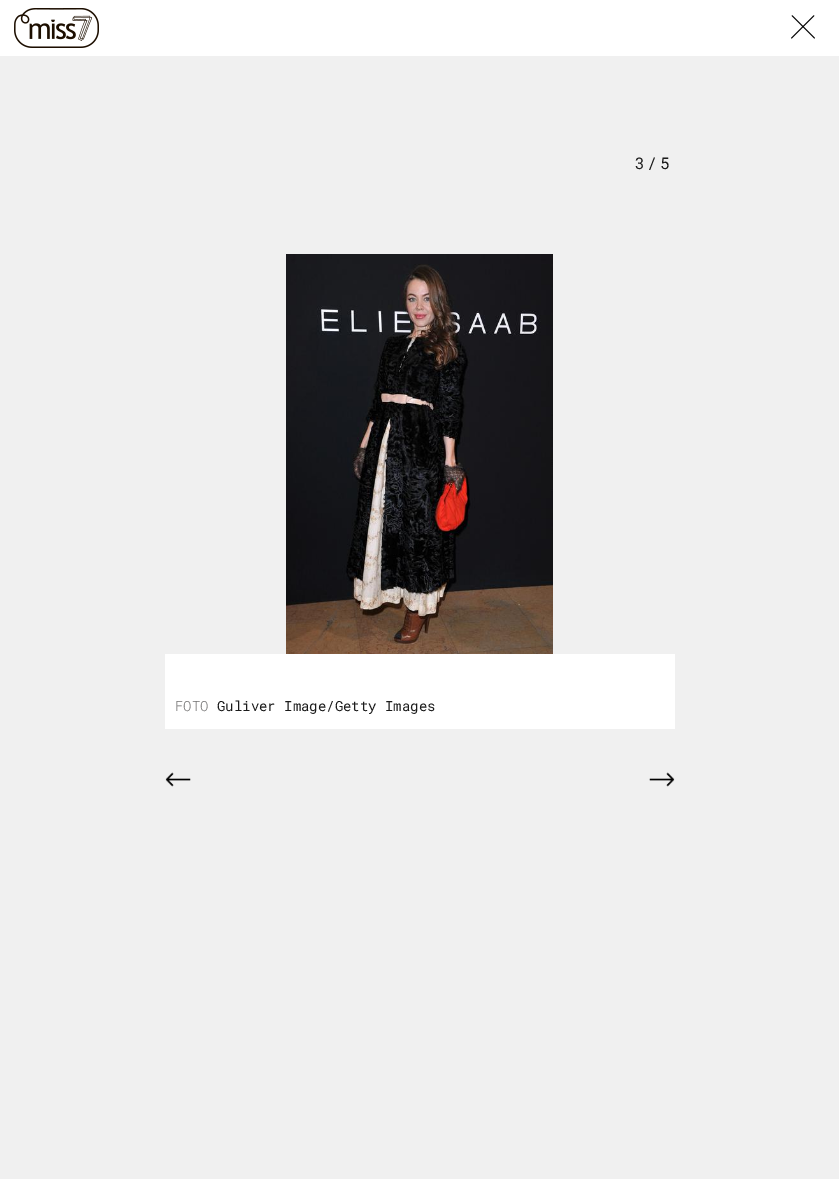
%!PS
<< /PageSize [839 1179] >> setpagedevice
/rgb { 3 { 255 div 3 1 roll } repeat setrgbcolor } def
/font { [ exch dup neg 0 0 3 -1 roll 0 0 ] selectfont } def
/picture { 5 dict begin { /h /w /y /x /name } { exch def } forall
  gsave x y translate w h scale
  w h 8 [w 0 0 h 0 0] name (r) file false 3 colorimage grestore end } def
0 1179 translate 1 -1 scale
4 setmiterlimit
240 240 240 rgb
0 0 839 1179 rectfill
255 255 255 rgb
0 0 839 56 rectfill
(img/1.rgb) 14 8 85 40 picture
(img/2.rgb) 791 15 24 24 picture
(img/3.rgb) 286 254 267 400 picture
165 654 510 75 rectfill
(img/4.rgb) 165 772 26 15 picture
(img/5.rgb) 649 772 26 15 picture
/RobotoMono-Regular 16 font
27 27 27 rgb
[
  [(3) 635 169]
  [(/) 647 169]
  [(5) 660 169]
] { aload pop moveto show } forall
/RobotoMono-Light 14 font
109 108 108 rgb
175 711 moveto (FOTO) show
/RobotoMono-Regular 14 font
27 27 27 rgb
217 711 moveto (Guliver Image/Getty Images) show
showpage
